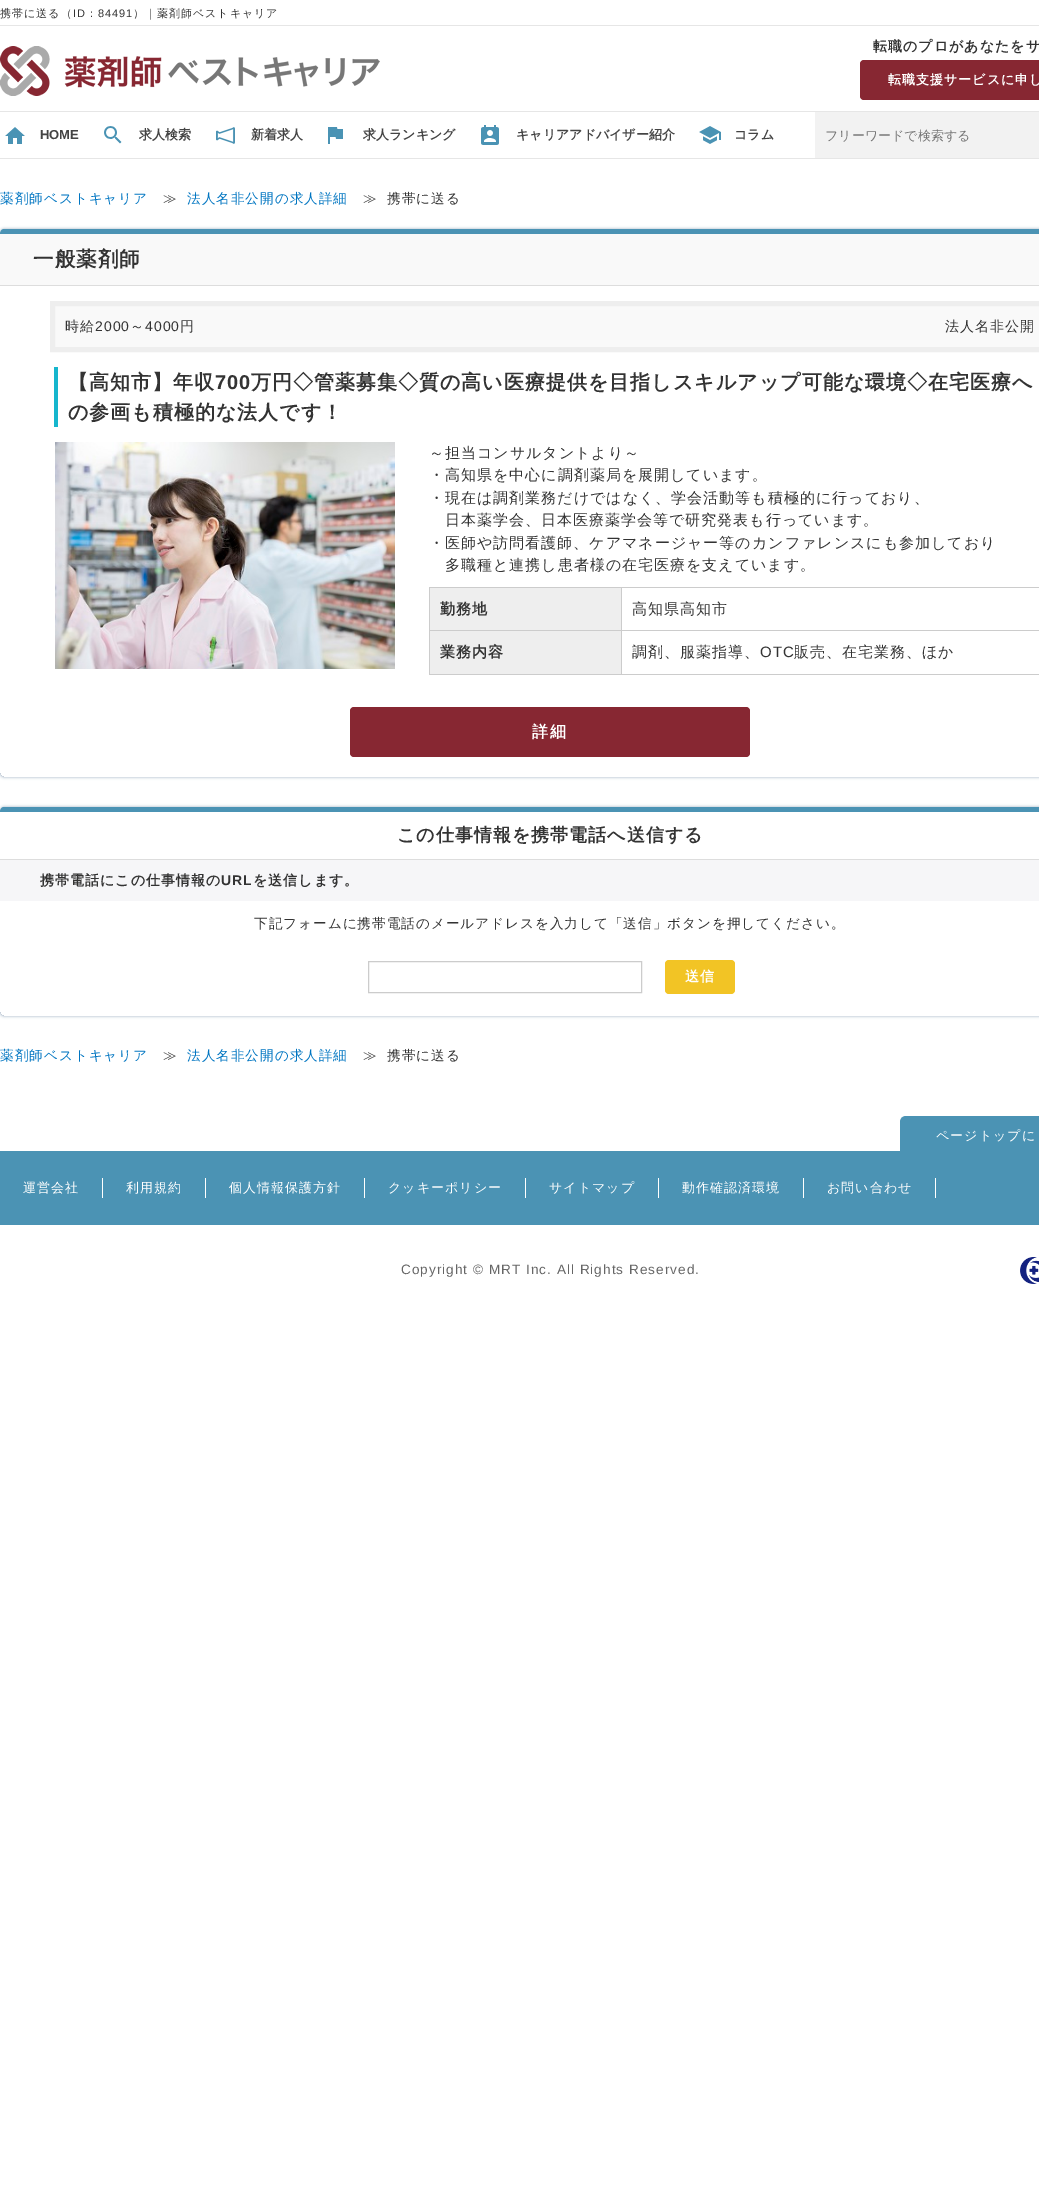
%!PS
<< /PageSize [1039 2194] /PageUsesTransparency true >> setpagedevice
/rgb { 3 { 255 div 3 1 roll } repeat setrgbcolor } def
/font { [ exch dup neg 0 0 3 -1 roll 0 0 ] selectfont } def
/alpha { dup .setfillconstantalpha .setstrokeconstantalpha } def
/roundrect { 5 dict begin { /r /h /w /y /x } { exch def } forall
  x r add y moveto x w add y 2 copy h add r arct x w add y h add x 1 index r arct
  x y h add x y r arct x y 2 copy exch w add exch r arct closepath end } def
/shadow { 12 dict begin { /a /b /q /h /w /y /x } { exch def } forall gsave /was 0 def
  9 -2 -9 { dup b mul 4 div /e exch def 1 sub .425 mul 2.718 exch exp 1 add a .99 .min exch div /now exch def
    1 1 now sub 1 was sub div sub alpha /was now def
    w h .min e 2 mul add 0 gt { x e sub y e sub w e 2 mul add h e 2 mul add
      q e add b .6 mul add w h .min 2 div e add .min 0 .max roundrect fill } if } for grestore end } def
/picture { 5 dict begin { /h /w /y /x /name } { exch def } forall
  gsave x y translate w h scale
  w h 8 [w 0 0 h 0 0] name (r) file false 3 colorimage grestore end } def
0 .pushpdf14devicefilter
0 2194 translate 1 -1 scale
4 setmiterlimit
255 255 255 rgb
0 0 1039 2194 rectfill
230 230 230 rgb
0 25 1039 1 rectfill
(img/1.rgb) 0 46 380 50 picture
135 39 50 rgb
860 60 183 40 4 roundrect fill
230 230 230 rgb
0 111 1039 1 rectfill
0 158 1039 1 rectfill
(img/2.rgb) 5 127 20 17 picture
(img/3.rgb) 104 126 18 18 picture
(img/4.rgb) 216 127 19 17 picture
(img/5.rgb) 328 127 15 17 picture
(img/6.rgb) 481 125 18 20 picture
(img/7.rgb) 699 126 22 18 picture
242 242 242 rgb
815 112 224 46 rectfill
gsave
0 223 moveto 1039 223 lineto 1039 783 lineto 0 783 lineto closepath 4 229 moveto 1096 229 lineto 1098 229 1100 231 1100 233 curveto 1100 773 lineto 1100 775 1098 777 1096 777 curveto 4 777 lineto 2 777 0 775 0 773 curveto 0 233 lineto 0 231 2 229 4 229 curveto closepath eoclip newpath
113 135 164 rgb
0 229 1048 548 4 1.5 0.65 shadow
grestore
249 249 249 rgb
4 229 moveto 1039 229 lineto 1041 229 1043 231 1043 233 curveto 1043 286 lineto 0 286 lineto 0 233 lineto 0 231 2 229 4 229 curveto closepath fill
75 147 180 rgb
4 229 moveto 1 229 0 232 0 234 curveto 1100 234 lineto 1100 232 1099 229 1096 229 curveto closepath fill
221 221 221 rgb
0 285 1039 1 rectfill
135 39 50 rgb
350 707 400 50 4 roundrect fill
249 249 249 rgb
52.5 303.5 moveto 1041.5 303.5 lineto 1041.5 349.5 lineto 52.5 349.5 lineto closepath gsave fill grestore
238 238 238 rgb
5 setlinewidth
stroke
22 182 205 rgb
54 367 4 60 rectfill
(img/8.rgb) 55 442 340 227 picture
[
  [430 588 191 42 238 238 238]
  [621 587 418 1 204 204 204]
  [621 630 418 1 204 204 204]
  [621 674 418 1 204 204 204]
  [621 630 1 45 204 204 204]
  [429 630 193 1 204 204 204]
  [621 587 1 44 204 204 204]
  [429 587 193 1 204 204 204]
  [429 674 193 1 204 204 204]
  [429 630 1 45 204 204 204]
  [429 587 1 44 204 204 204]
  [430 631 191 43 238 238 238]
] { aload pop rgb rectfill } forall
gsave
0 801 moveto 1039 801 lineto 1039 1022 lineto 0 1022 lineto closepath 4 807 moveto 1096 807 lineto 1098 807 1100 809 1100 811 curveto 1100 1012 lineto 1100 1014 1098 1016 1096 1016 curveto 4 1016 lineto 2 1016 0 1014 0 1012 curveto 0 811 lineto 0 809 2 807 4 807 curveto closepath eoclip newpath
113 135 164 rgb
0 807 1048 209 4 1.5 0.65 shadow
grestore
75 147 180 rgb
4 807 moveto 1 807 0 810 0 812 curveto 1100 812 lineto 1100 810 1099 807 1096 807 curveto closepath fill
221 221 221 rgb
0 859 1039 1 rectfill
246 246 248 rgb
0 860 1039 41 rectfill
204 204 204 rgb
1 setlinewidth
368.5 961.5 273 31 rectstroke
242 196 37 rgb
665 960 70 34 4 roundrect fill
75 147 180 rgb
906 1116 moveto 1039 1116 lineto 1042.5 1116 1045 1118.5 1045 1122 curveto 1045 1151 lineto 900 1151 lineto 900 1122 lineto 900 1118.5 902.5 1116 906 1116 curveto closepath fill
[
  [0 1151 1039 74 75 147 180]
  [102 1178 1 20 255 255 255]
  [205 1178 1 20 255 255 255]
  [364 1178 1 20 255 255 255]
  [525 1178 1 20 255 255 255]
  [658 1178 1 20 255 255 255]
  [803 1178 1 20 255 255 255]
  [935 1178 1 20 255 255 255]
] { aload pop rgb rectfill } forall
(img/9.rgb) 1020 1257 19 27 picture
/WenQuanYiZenHei-Medium 11 font
51 51 51 rgb
0 17 moveto 1 0 (携帯に送る（) ashow
/LiberationSans-Regular 11 font
73 17 moveto 1 0 (ID) ashow
/WenQuanYiZenHei-Medium 11 font
86 17 moveto 1 0 (：) ashow
/LiberationSans-Regular 11 font
98 17 moveto 1 0 (84491) ashow
/WenQuanYiZenHei-Medium 11 font
133 17 moveto 1 0 (）｜薬剤師ベストキャリア) ashow
/WenQuanYiZenHei-Bold 14 font
873 51 moveto 1 0 (転職のプロがあなたをサ) ashow
/WenQuanYiZenHei-Bold 13 font
255 255 255 rgb
888 84 moveto 1 0 (転職支援サービスに申し) ashow
/LiberationSans-Bold 13 font
68 68 68 rgb
40 139 moveto (HOME) show
/WenQuanYiZenHei-Bold 13 font
[
  [(求人検索) 139 139]
  [(新着求人) 251 139]
  [(求人ランキング) 363 139]
  [(キャリアアドバイザー紹介) 516 139]
  [(コラム) 734 139]
] { aload pop moveto show } forall
/WenQuanYiZenHei-Medium 13 font
117 117 117 rgb
825 140 moveto (フリーワードで検索する) show
/WenQuanYiZenHei-Medium 13.6 font
0 117 193 rgb
0 203 moveto 1 0 (薬剤師ベストキャリア) ashow
51 51 51 rgb
163 203 moveto 1 0 (≫) ashow
0 117 193 rgb
187 203 moveto 1 0 (法人名非公開の求人詳細) ashow
51 51 51 rgb
363 203 moveto 1 0 (≫) ashow
387 203 moveto 1 0 (携帯に送る) ashow
/WenQuanYiZenHei-Bold 20.5 font
33 266 moveto 1 0 (一般薬剤師) ashow
/WenQuanYiZenHei-Bold 16 font
255 255 255 rgb
532 737 moveto 2 0 (詳細) ashow
/WenQuanYiZenHei-Medium 14 font
51 51 51 rgb
65 331 moveto 1 0 (時給) ashow
/LiberationSans-Regular 14 font
95 331 moveto 1 0 (2000) ashow
/WenQuanYiZenHei-Medium 14 font
130 331 moveto 1 0 (～) ashow
/LiberationSans-Regular 14 font
145 331 moveto 1 0 (4000) ashow
/WenQuanYiZenHei-Medium 14 font
180 331 moveto 1 0 (円) ashow
945 331 moveto 1 0 (法人名非公開) ashow
/WenQuanYiZenHei-Bold 20 font
68 389 moveto 1 0 (【高知市】年収) ashow
/LiberationSans-Bold 20 font
215 389 moveto 1 0 (700) ashow
/WenQuanYiZenHei-Bold 20 font
251 389 moveto 1 0 (万円◇管薬募集◇質の高い医療提供を目指しスキルアップ可能な環境◇在宅医療へ) ashow
68 419 moveto 1 0 (の参画も積極的な法人です！) ashow
/WenQuanYiZenHei-Medium 15 font
429 458 moveto 1 0 (～担当コンサルタントより～) ashow
429 480 moveto 1 0 (・高知県を中心に調剤薬局を展開しています。) ashow
429 503 moveto 1 0 (・現在は調剤業務だけではなく、学会活動等も積極的に行っており、) ashow
445 525 moveto 1 0 (日本薬学会、日本医療薬学会等で研究発表も行っています。) ashow
429 548 moveto 1 0 (・医師や訪問看護師、ケアマネージャー等のカンファレンスにも参加しており) ashow
445 570 moveto 1 0 (多職種と連携し患者様の在宅医療を支えています。) ashow
/WenQuanYiZenHei-Bold 15 font
440 614 moveto 1 0 (勤務地) ashow
/WenQuanYiZenHei-Medium 15 font
632 614 moveto 1 0 (高知県高知市) ashow
/WenQuanYiZenHei-Bold 15 font
440 657 moveto 1 0 (業務内容) ashow
/WenQuanYiZenHei-Medium 15 font
632 657 moveto 1 0 (調剤、服薬指導、) ashow
/LiberationSans-Regular 15 font
760 657 moveto 1 0 (OTC) ashow
/WenQuanYiZenHei-Medium 15 font
794 657 moveto 1 0 (販売、在宅業務、ほか) ashow
/WenQuanYiZenHei-Bold 18 font
397 841 moveto 1 0 (この仕事情報を携帯電話へ送信する) ashow
/WenQuanYiZenHei-Bold 14 font
40 885 moveto 1 0 (携帯電話にこの仕事情報の) ashow
/LiberationSans-Bold 14 font
221 885 moveto 1 0 (URL) ashow
/WenQuanYiZenHei-Bold 14 font
253 885 moveto 1 0 (を送信します。) ashow
/WenQuanYiZenHei-Medium 13.6 font
254 928 moveto 1 0 (下記フォームに携帯電話のメールアドレスを入力して「送信」ボタンを押してください。) ashow
/WenQuanYiZenHei-Bold 14 font
255 255 255 rgb
685 981 moveto 1 0 (送信) ashow
/WenQuanYiZenHei-Medium 13.6 font
0 117 193 rgb
0 1060 moveto 1 0 (薬剤師ベストキャリア) ashow
51 51 51 rgb
163 1060 moveto 1 0 (≫) ashow
0 117 193 rgb
187 1060 moveto 1 0 (法人名非公開の求人詳細) ashow
51 51 51 rgb
363 1060 moveto 1 0 (≫) ashow
387 1060 moveto 1 0 (携帯に送る) ashow
/WenQuanYiZenHei-Medium 13 font
255 255 255 rgb
936 1140 moveto 1 0 (ページトップに) ashow
23 1192 moveto 1 0 (運営会社) ashow
126 1192 moveto 1 0 (利用規約) ashow
229 1192 moveto 1 0 (個人情報保護方針) ashow
388 1192 moveto 1 0 (クッキーポリシー) ashow
549 1192 moveto 1 0 (サイトマップ) ashow
682 1192 moveto 1 0 (動作確認済環境) ashow
827 1192 moveto 1 0 (お問い合わせ) ashow
/LiberationSans-Regular 13.6 font
102 102 102 rgb
401 1274 moveto 1 0 (Copyright © MRT Inc. All Rights Reserved.) ashow
.poppdf14devicefilter showpage
